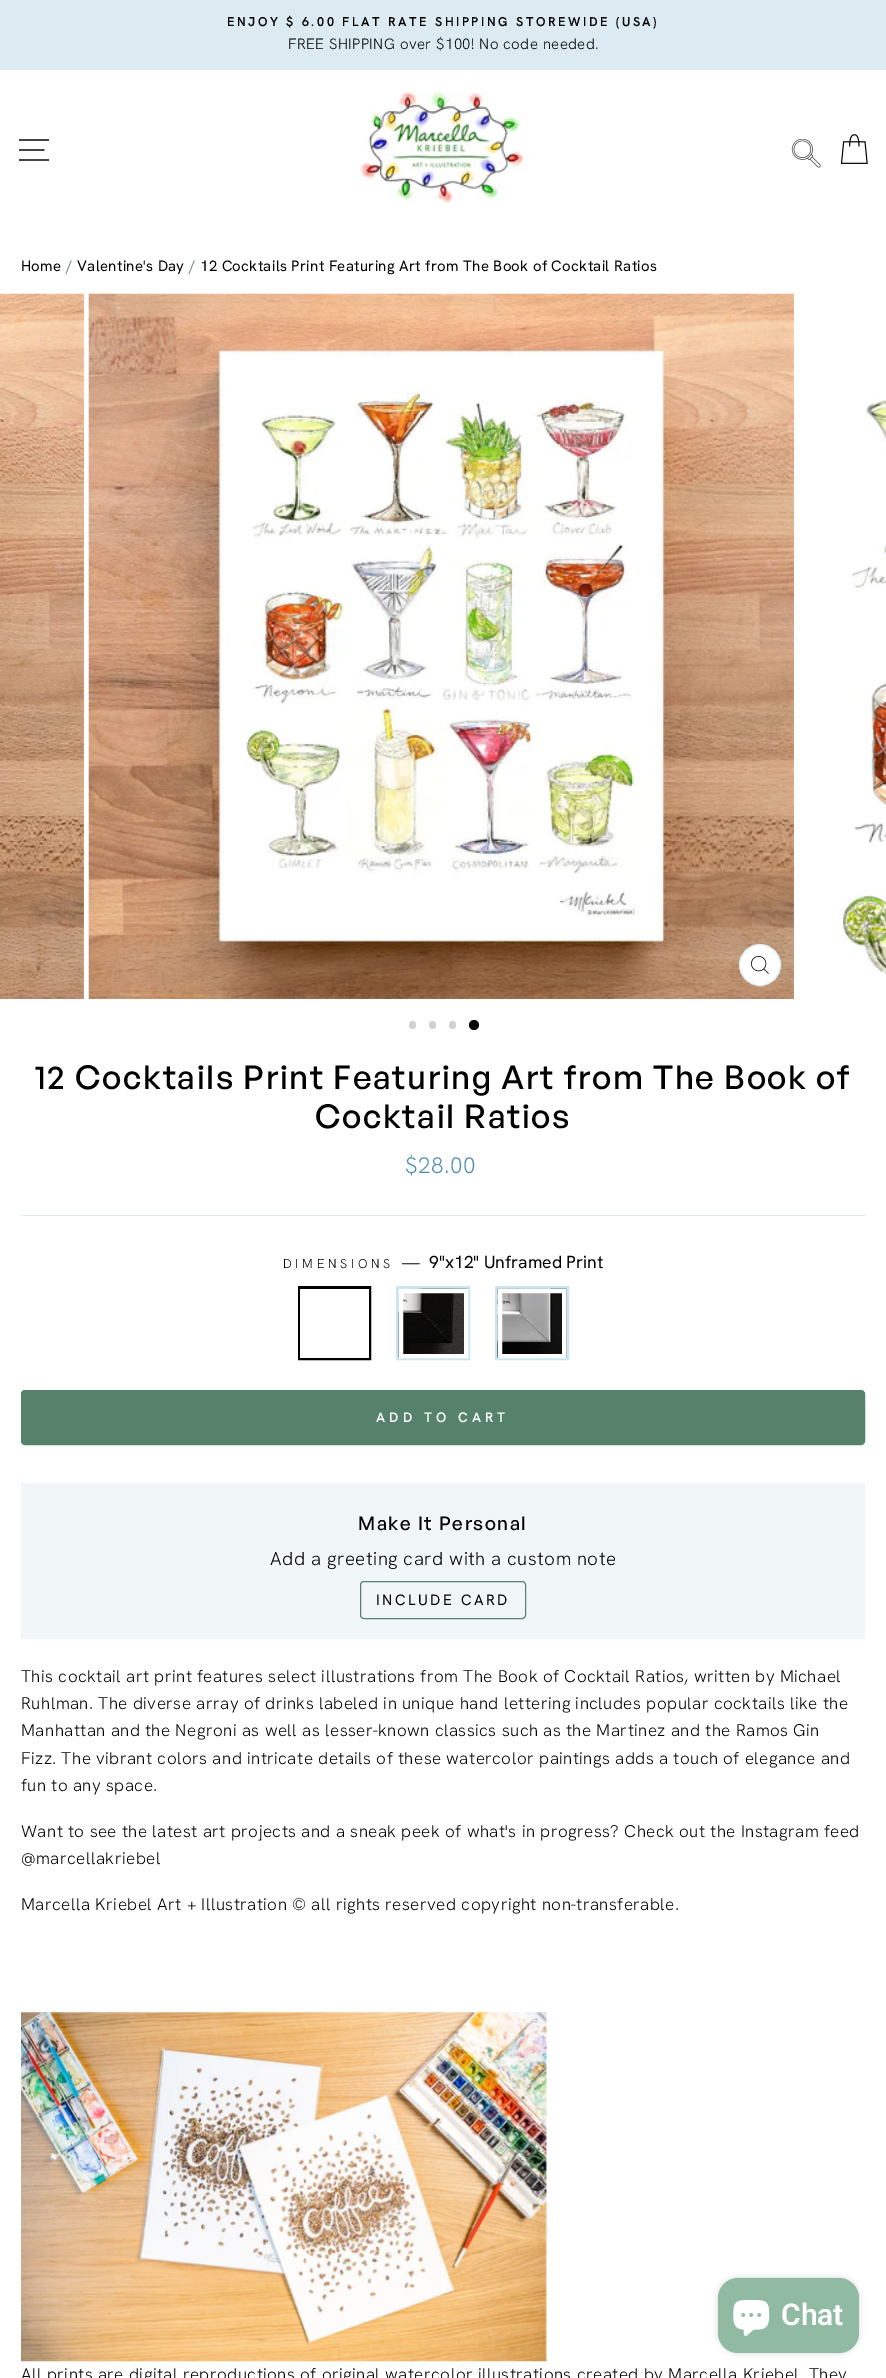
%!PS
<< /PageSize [886 2378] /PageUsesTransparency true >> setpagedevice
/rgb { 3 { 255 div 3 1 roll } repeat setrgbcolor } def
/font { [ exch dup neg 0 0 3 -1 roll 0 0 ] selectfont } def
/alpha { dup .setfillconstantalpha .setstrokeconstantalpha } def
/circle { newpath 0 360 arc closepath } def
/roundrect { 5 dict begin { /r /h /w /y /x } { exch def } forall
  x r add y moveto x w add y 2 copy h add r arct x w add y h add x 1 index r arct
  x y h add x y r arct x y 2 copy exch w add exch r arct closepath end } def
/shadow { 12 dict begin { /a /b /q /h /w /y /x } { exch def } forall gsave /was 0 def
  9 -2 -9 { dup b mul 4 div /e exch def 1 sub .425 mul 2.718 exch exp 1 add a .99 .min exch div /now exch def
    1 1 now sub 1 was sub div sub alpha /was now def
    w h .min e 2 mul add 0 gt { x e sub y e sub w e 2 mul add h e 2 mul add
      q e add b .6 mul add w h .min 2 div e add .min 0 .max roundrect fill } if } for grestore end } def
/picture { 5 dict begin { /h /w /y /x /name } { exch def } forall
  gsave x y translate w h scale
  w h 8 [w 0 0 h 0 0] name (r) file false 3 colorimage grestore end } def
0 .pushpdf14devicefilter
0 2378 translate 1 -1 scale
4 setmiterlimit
255 255 255 rgb
0 0 886 2378 rectfill
220 235 242 rgb
0 0 886 70 rectfill
0 0 0 rgb
1.2 setlinewidth
19 140 moveto 49 140 lineto 19 150 moveto 44.5 150 lineto 19 160 moveto 49 160 lineto stroke
(img/1.rgb) 360 91 170 112 picture
(img/2.rgb) 791 139 30 29 picture
(img/3.rgb) 840 134 28 30 picture
(img/4.rgb) 0 293 84 706 picture
(img/5.rgb) 88 293 706 706 picture
255 255 255 rgb
760 965 20.5 circle gsave fill grestore
220 235 242 rgb
1 setlinewidth
stroke
(img/6.rgb) 751 956 18 18 picture
(img/7.rgb) 840 398 46 577 picture
209 209 209 rgb
409 1021 7 8 3.5 roundrect fill
429 1021 7 8 3.5 roundrect fill
449 1021 7 8 3.5 roundrect fill
0 0 0 rgb
474 1025 5 circle fill
220 235 242 rgb
21 1215 844 1 rectfill
0 0 0 rgb
3 setlinewidth
299.5 1287.5 70 71 rectstroke
255 255 255 rgb
300 1289 69 69 rectfill
204 230 239 rgb
397.5 1287.5 71 71 rectstroke
(img/8.rgb) 398 1288 70 70 picture
255 255 255 rgb
4 setlinewidth
401 1291 65 65 rectstroke
204 230 239 rgb
3 setlinewidth
496.5 1287.5 71 71 rectstroke
(img/9.rgb) 497 1288 70 70 picture
255 255 255 rgb
4 setlinewidth
500 1291 64 65 rectstroke
86 130 108 rgb
21.5 1390.5 843 54 3.5 roundrect gsave fill grestore
1 setlinewidth
stroke
241 246 249 rgb
21 1483 844 156 rectfill
86 130 108 rgb
360.5 1581.5 165 37 3.5 roundrect stroke
(img/10.rgb) 21 2012 526 350 picture
0 0 0 rgb
718 2278 141 75 20 3 0.15 shadow
145 186 163 rgb
718 2278 141 75 20 roundrect fill
(img/11.rgb) 733 2300 37 36 picture
/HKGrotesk-SemiBold 12.75 font
0 0 0 rgb
227 26 moveto 2.55 0 (ENJOY $ 6.00 FLAT RATE SHIPPING STOREWIDE \(USA\)) ashow
/HKGrotesk-Light 15 font
288 49 moveto 0.43 0 (FREE SHIPPING over $100! No code needed.) ashow
/HKGrotesk-Regular 15 font
21 271 moveto 0.3 0 (Home) ashow
86 130 108 rgb
66 271 moveto 0.3 0 (/) ashow
0 0 0 rgb
77 271 moveto 0.3 0 (Valentine's Day) ashow
86 130 108 rgb
189 271 moveto 0.3 0 (/) ashow
0 0 0 rgb
200 271 moveto 0.3 0 (12 Cocktails Print Featuring Art from The Book of Cocktail Ratios) ashow
/GeneralSans-Medium 32.85 font
35 1089 moveto 1.65 0 (12 Cocktails Print Featuring Art from The Book of) ashow
315 1128 moveto 1.65 0 (Cocktail Ratios) ashow
/HKGrotesk-Light 22.5 font
78 140 175 rgb
405 1173 moveto 0.43 0 ($28.00) ashow
/HKGrotesk-Light 12.75 font
0 0 0 rgb
283 1268 moveto 3.75 0 (DIMENSIONS) ashow
/HKGrotesk-Regular 17.5 font
402 1268 moveto (—) show
429 1268 moveto (9"x12" Unframed Print) show
/HKGrotesk-SemiBold 13.75 font
255 255 255 rgb
376 1422 moveto 4.1 0 (ADD TO CART) ashow
/GeneralSans-Medium 18.75 font
0 0 0 rgb
358 1530 moveto 1.6 0 (Make It Personal) ashow
/HKGrotesk-Light 18.75 font
270 1565 moveto 0.5 0 (Add a greeting card with a custom note) ashow
/HKGrotesk-Regular 15 font
376 1605 moveto 2.5 0 (INCLUDE CARD) ashow
/HKGrotesk-Light 17 font
21 1682 moveto 0.43 0 (This cocktail art print features select illustrations from The Book of Cocktail Ratios, written by Michael) ashow
21 1709 moveto 0.43 0 (Ruhlman. The diverse array of drinks labeled in unique hand lettering includes popular cocktails like the) ashow
21 1736 moveto 0.43 0 (Manhattan and the Negroni as well as lesser-known classics such as the Martinez and the Ramos Gin) ashow
21 1764 moveto 0.43 0 (Fizz. The vibrant colors and intricate details of these watercolor paintings adds a touch of elegance and) ashow
21 1791 moveto 0.43 0 (fun to any space.) ashow
21 1837 moveto 0.43 0 (Want to see the latest art projects and a sneak peek of what's in progress? Check out the Instagram feed) ashow
21 1864 moveto 0.43 0 (@marcellakriebel) ashow
21 1910 moveto 0.43 0 (Marcella Kriebel Art + Illustration © all rights reserved copyright non-transferable.) ashow
21 2380 moveto 0.43 0 (All prints are digital reproductions of original watercolor illustrations created by Marcella Kriebel. They) ashow
/Roboto-SemiBold 30 font
255 255 255 rgb
781 2325 moveto (Chat) show
.poppdf14devicefilter showpage
